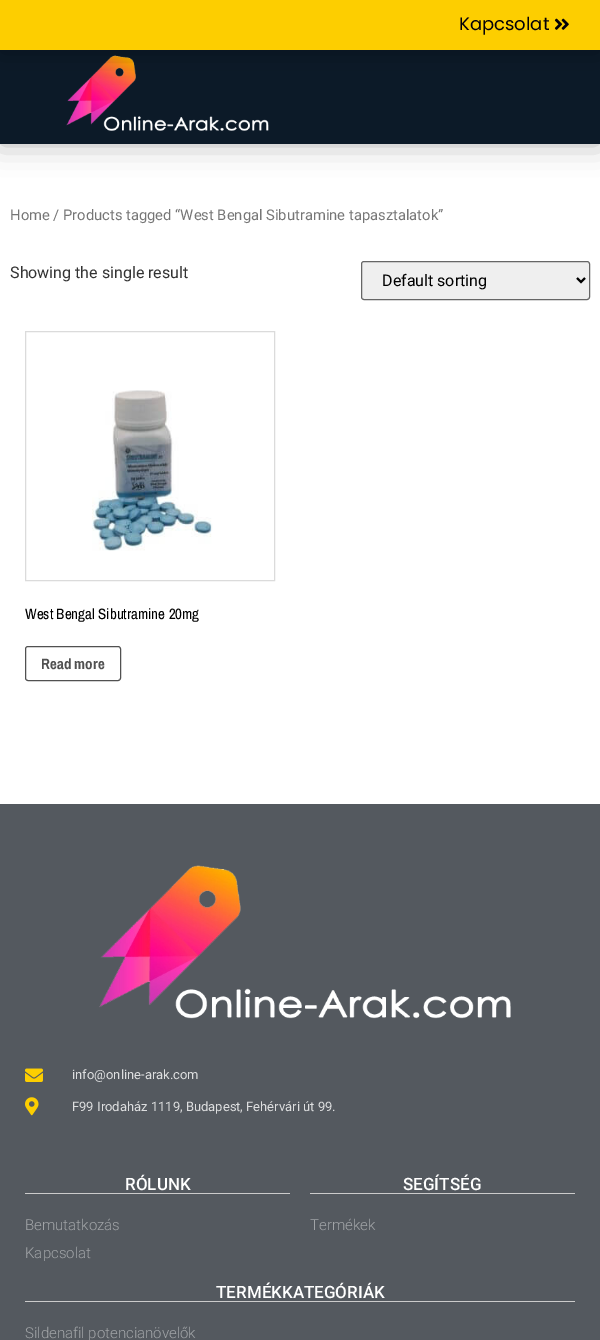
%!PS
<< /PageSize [600 1340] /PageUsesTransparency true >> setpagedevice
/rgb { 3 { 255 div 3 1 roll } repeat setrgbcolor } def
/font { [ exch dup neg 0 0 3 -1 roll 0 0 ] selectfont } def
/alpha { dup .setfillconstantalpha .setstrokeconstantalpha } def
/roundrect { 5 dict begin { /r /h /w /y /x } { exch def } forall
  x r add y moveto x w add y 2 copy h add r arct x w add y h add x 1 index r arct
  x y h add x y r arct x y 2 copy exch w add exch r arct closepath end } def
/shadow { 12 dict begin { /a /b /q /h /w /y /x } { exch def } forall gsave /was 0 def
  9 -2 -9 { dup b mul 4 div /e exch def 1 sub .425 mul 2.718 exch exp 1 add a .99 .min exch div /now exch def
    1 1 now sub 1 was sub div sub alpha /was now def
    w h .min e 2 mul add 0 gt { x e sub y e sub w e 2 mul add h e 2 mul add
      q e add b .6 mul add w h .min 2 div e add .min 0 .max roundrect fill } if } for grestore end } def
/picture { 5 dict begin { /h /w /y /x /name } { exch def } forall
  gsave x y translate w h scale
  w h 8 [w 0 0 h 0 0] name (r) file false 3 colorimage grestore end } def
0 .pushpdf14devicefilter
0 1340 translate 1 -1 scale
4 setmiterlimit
255 255 255 rgb
0 0 600 1340 rectfill
0 0 0 rgb
0 50 600 94 0 15 0.3 shadow
12 26 40 rgb
0 50 600 94 rectfill
(img/1.rgb) 66 55 203 76 picture
0 0 0 rgb
0 2 600 50 0 15 0.3 shadow
253 206 0 rgb
0 0 600 50 rectfill
(img/2.rgb) 554 18 15 12 picture
239 239 239 rgb
361.5 261.5 228 38 2.5 roundrect gsave fill grestore
102 102 102 rgb
stroke
0 0 0 rgb
2 setlinewidth
577 278 moveto 581 282 lineto 585 278 lineto stroke
219 219 219 rgb
1 setlinewidth
25.5 331.5 249 249 rectstroke
(img/3.rgb) 92 390 121 161 picture
81 81 81 rgb
25.5 646.5 95 34 2.5 roundrect stroke
84 89 95 rgb
0 804 600 536 rectfill
(img/4.rgb) 99 865 412 154 picture
(img/5.rgb) 25 1068 18 14 picture
(img/6.rgb) 25 1097 14 19 picture
[
  [25 1193 265 1 203 203 203]
  [310 1193 265 1 203 203 203]
  [25 1301 550 1 203 203 203]
] { aload pop rgb rectfill } forall
/Poppins-Regular 18 font
3 0 9 rgb
459 30 moveto (Kapcsolat) show
/Roboto-Regular 14.75 font
118 118 118 rgb
10 220 moveto (Home / Products tagged “West Bengal Sibutramine tapasztalatok”) show
/Roboto-Regular 16 font
51 51 51 rgb
10 278 moveto (Showing the single result) show
0 0 0 rgb
382 286 moveto (Default sorting) show
/ArchivoNarrow-Regular 15 font
25 619 moveto (West Bengal Sibutramine 20mg) show
/ArchivoNarrow-Bold 15 font
81 81 81 rgb
41 669 moveto (Read more) show
/Roboto-Regular 13 font
221 222 223 rgb
72 1079 moveto (info@online-arak.com) show
72 1111 moveto (F99 Irodaház 1119, Budapest, Fehérvári út 99.) show
/Roboto-Medium 17 font
255 255 255 rgb
125 1190 moveto (RÓLUNK) show
/Roboto-Light 15 font
161 164 167 rgb
25 1230 moveto (Bemutatkozás) show
25 1258 moveto (Kapcsolat) show
/Roboto-Medium 17 font
255 255 255 rgb
403 1190 moveto (SEGÍTSÉG) show
/Roboto-Light 15 font
161 164 167 rgb
310 1230 moveto (Termékek) show
/Roboto-Medium 17 font
255 255 255 rgb
216 1298 moveto (TERMÉKKATEGÓRIÁK) show
/Roboto-Light 15 font
161 164 167 rgb
25 1338 moveto (Sildenafil potencianövelők) show
.poppdf14devicefilter showpage
